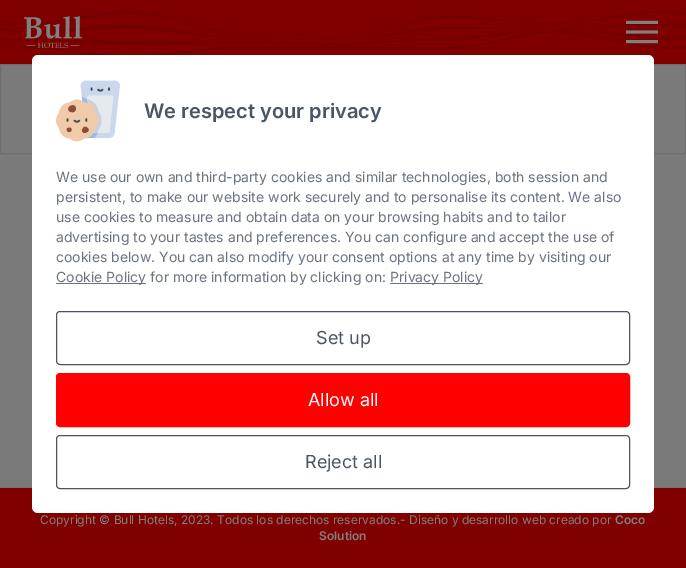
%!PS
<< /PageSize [686 568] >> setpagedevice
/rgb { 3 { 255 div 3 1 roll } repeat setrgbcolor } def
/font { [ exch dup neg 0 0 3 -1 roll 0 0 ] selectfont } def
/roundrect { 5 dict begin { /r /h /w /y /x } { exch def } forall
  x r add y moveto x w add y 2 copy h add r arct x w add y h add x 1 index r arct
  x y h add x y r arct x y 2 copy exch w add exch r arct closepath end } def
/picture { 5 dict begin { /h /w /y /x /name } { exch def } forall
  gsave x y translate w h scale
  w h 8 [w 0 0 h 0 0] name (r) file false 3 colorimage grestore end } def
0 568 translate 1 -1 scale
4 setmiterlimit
122 122 122 rgb
0 0 686 568 rectfill
128 0 0 rgb
0 0 686 64 rectfill
(img/1.rgb) 0 11 686 44 picture
(img/2.rgb) 24 16 58 32 picture
(img/3.rgb) 626 20 32 24 picture
109 109 109 rgb
0.5 64.5 171 89 rectstroke
515.5 64.5 170 89 rectstroke
128 0 0 rgb
0 488 686 80 rectfill
115 116 118 rgb
0 487 686 1 rectfill
255 255 255 rgb
32 55 622 458 6 roundrect fill
(img/4.rgb) 56 80 64 62 picture
107 114 128 rgb
56 283 90 1 rectfill
390 283 93 1 rectfill
75 85 99 rgb
56.5 311.5 573 53 3.5 roundrect stroke
255 0 0 rgb
56.5 373.5 573 53 3.5 roundrect gsave fill grestore
stroke
75 85 99 rgb
56.5 435.5 573 53 3.5 roundrect stroke
/Inter-SemiBold 20 font
144 118 moveto (We respect your privacy) show
/Inter-Regular 14 font
107 114 128 rgb
[
  [(We use our own and third-party cookies and similar technologies, both session and) 56 182]
  [(persistent, to make our website work securely and to personalise its content. We also) 56 202]
  [(use cookies to measure and obtain data on your browsing habits and to tailor) 56 222]
  [(advertising to your tastes and preferences. You can configure and accept the use of) 56 242]
  [(cookies below. You can also modify your consent options at any time by visiting our) 56 262]
  [(Cookie Policy for more information by clicking on:) 56 282]
  [(Privacy Policy) 390 282]
] { aload pop moveto show } forall
/Inter-Regular 18 font
75 85 99 rgb
316 344 moveto (Set up) show
255 255 255 rgb
308 406 moveto (Allow all) show
75 85 99 rgb
305 468 moveto (Reject all) show
/Inter-Regular 12 font
128 128 128 rgb
40 524 moveto (Copyright © Bull Hotels, 2023. Todos los derechos reservados.- Diseño y desarrollo web creado por) show
/Inter-SemiBold 12 font
615 524 moveto (Coco) show
319 540 moveto (Solution) show
showpage
